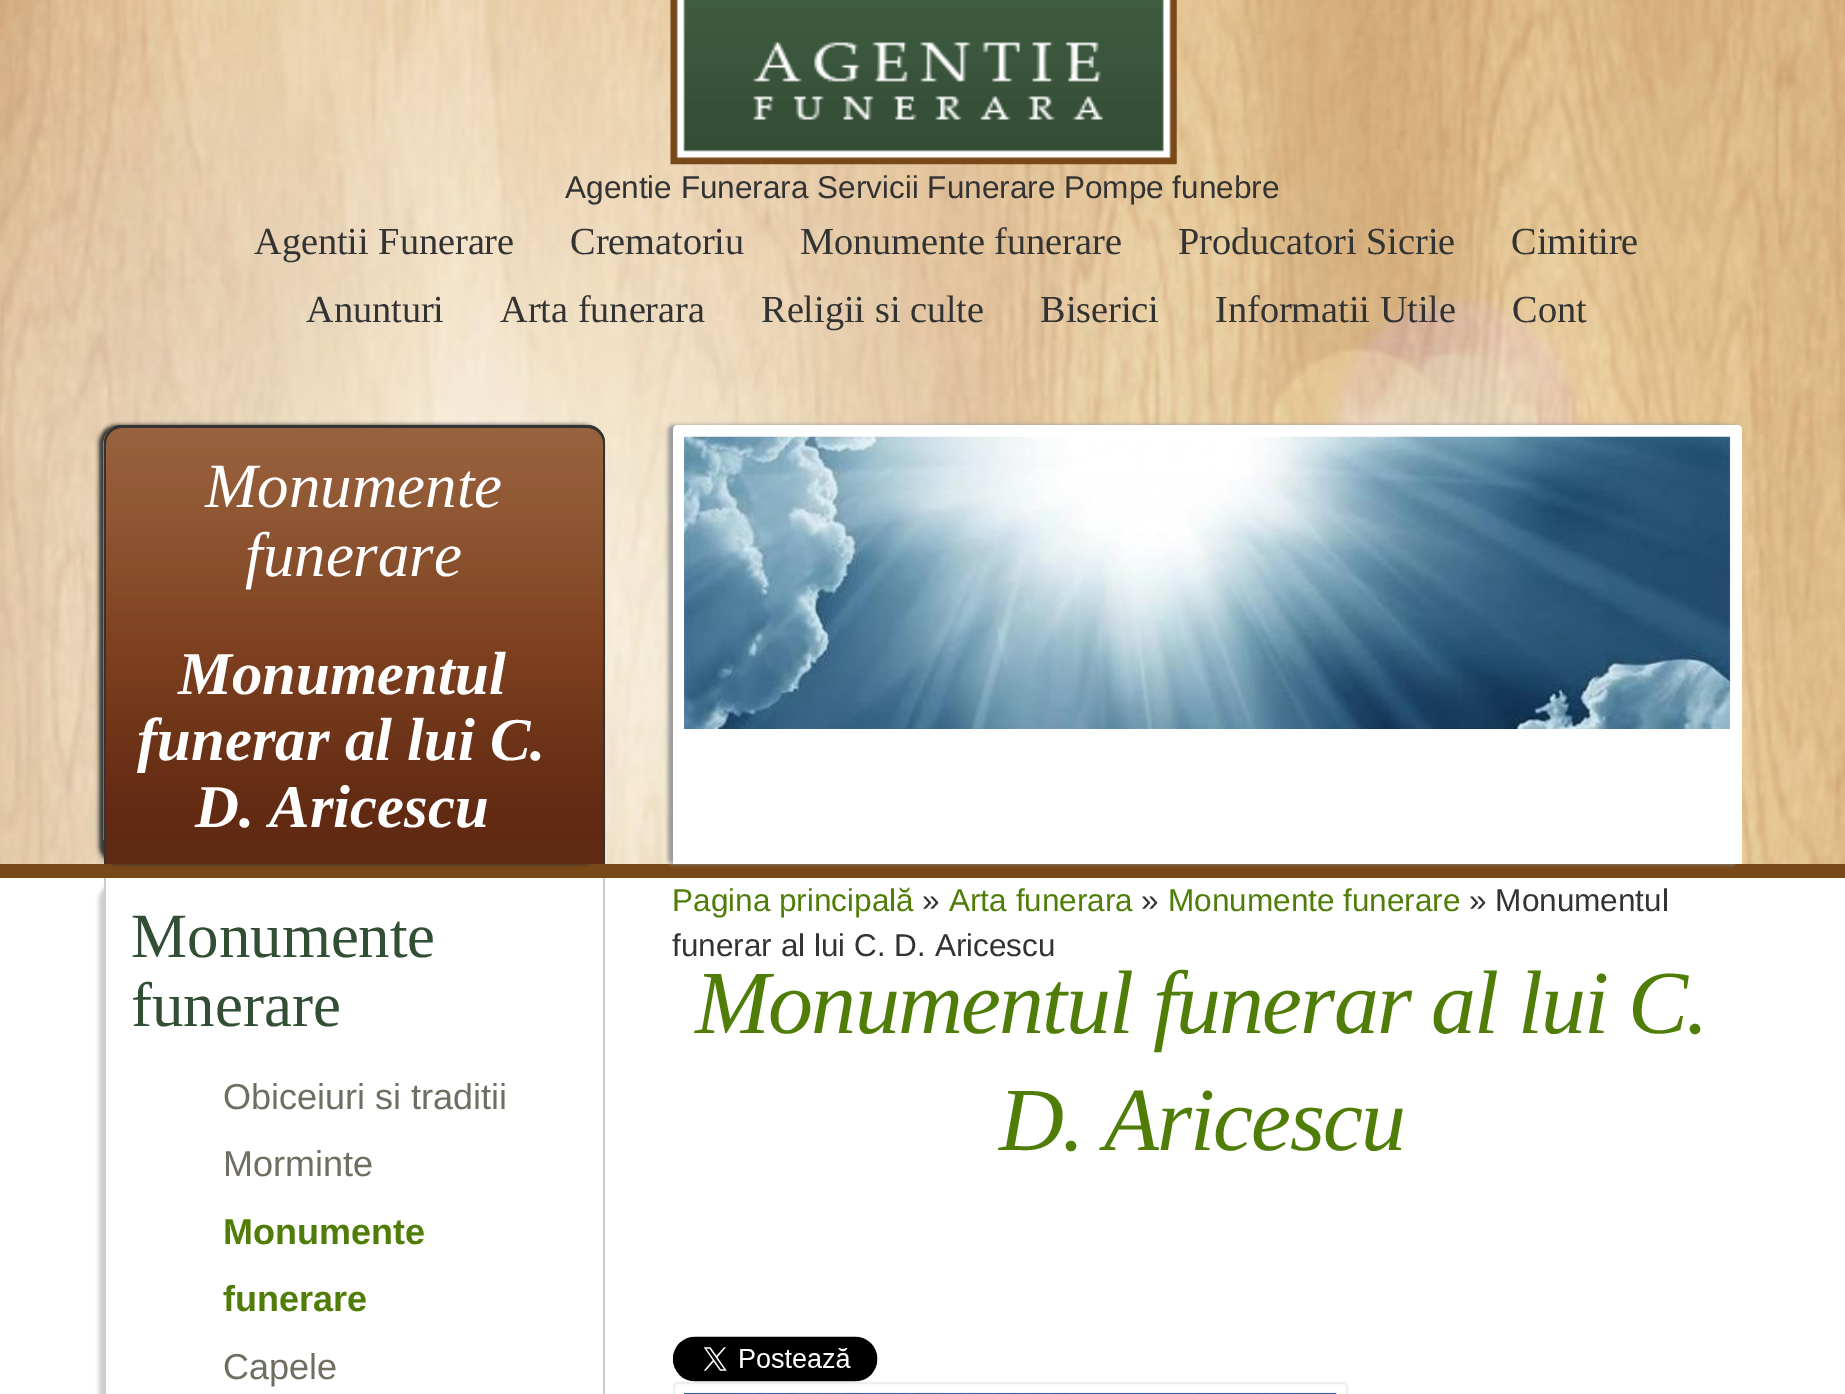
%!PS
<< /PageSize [1845 1394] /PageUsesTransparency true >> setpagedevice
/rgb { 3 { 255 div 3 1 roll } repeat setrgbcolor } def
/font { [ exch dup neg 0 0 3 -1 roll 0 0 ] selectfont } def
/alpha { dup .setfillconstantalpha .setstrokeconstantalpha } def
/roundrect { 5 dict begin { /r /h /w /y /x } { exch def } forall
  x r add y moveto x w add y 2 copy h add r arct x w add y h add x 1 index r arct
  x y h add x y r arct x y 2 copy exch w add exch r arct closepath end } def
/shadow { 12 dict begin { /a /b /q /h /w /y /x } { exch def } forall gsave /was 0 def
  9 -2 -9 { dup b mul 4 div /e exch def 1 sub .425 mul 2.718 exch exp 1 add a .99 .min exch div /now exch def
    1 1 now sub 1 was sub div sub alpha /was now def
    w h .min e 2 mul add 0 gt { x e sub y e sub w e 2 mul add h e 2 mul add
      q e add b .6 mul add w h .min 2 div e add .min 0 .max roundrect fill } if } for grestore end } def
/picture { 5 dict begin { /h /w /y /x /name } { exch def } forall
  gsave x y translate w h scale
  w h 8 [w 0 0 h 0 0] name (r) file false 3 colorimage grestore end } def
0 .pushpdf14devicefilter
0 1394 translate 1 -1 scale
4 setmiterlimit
255 255 255 rgb
0 0 1845 1394 rectfill
(img/1.rgb) 0 0 1845 864 picture
120 72 24 rgb
0 864 1845 14 rectfill
(img/2.rgb) 670 0 507 165 picture
51 51 51 rgb
99 425 502 439 18 2 1 shadow
97 42 18 rgb
122 425 moveto 587 425 lineto 597 425 605 433 605 443 curveto 605 864 lineto 104 864 lineto 104 443 lineto 104 433 112 425 122 425 curveto closepath fill
(img/3.rgb) 103 427 503 413 picture
51 51 51 rgb
122 425 moveto 587 425 lineto 597 425 605 433 605 443 curveto 605 864 lineto 104 864 lineto 104 443 lineto 104 433 112 425 122 425 curveto closepath 122 428 moveto 587 428 lineto 596 428 603 435 603 443 curveto 603 864 lineto 106 864 lineto 106 443 lineto 106 435 113 428 122 428 curveto closepath eofill
153 153 153 rgb
668 425 1069 439 5 2 1 shadow
255 255 255 rgb
678 425 moveto 1737 425 lineto 1740 425 1742 427 1742 430 curveto 1742 864 lineto 673 864 lineto 673 430 lineto 673 427 675 425 678 425 curveto closepath fill
(img/4.rgb) 684 436 1047 293 picture
gsave
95 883 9 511 rectclip
204 204 204 rgb
99 882 502 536 18 2 1 shadow
grestore
204 204 204 rgb
104 878 moveto 605 878 lineto 605 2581 lineto 605 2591 597 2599 587 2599 curveto 122 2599 lineto 112 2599 104 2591 104 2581 curveto closepath 106 878 moveto 603 878 lineto 603 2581 lineto 603 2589 596 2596 587 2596 curveto 122 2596 lineto 113 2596 106 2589 106 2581 curveto closepath eofill
(img/5.rgb) 672 1336 206 46 picture
238 238 238 rgb
2 setlinewidth
674 1383 673 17 4 roundrect stroke
(img/6.rgb) 684 1392 653 2 picture
/LiberationSans-Regular 31.5 font
51 51 51 rgb
565 198 moveto (Agentie Funerara Servicii Funerare Pompe funebre) show
/LiberationSerif-Regular 38.25 font
[
  [(Agentii Funerare) 254 254]
  [(Crematoriu) 570 254]
  [(Monumente funerare) 800 254]
  [(Producatori Sicrie) 1178 254]
  [(Cimitire) 1511 254]
  [(Anunturi) 306 322]
  [(Arta funerara) 500 322]
  [(Religii si culte) 761 322]
  [(Biserici) 1040 322]
  [(Informatii Utile) 1215 322]
  [(Cont) 1512 322]
] { aload pop moveto show } forall
/LiberationSerif-Italic 63 font
255 255 255 rgb
205 507 moveto (Monumente) show
245 576 moveto (funerare) show
/LiberationSerif-BoldItalic 60.75 font
[
  [(Monumentul) 178 694]
  [(funerar al lui C.) 137 760]
  [(D. Aricescu) 195 827]
] { aload pop moveto show } forall
/LiberationSerif-Regular 63 font
50 79 53 rgb
131 957 moveto (Monumente) show
131 1026 moveto (funerare) show
/LiberationSans-Regular 36 font
112 110 98 rgb
223 1109 moveto (Obiceiuri si traditii) show
223 1176 moveto (Morminte) show
/LiberationSans-Bold 36 font
79 125 8 rgb
223 1244 moveto (Monumente) show
223 1311 moveto (funerare) show
/LiberationSans-Regular 36 font
112 110 98 rgb
223 1379 moveto (Capele) show
/LiberationSans-Regular 31.5 font
79 125 8 rgb
672 911 moveto (Pagina principală) show
51 51 51 rgb
922 911 moveto (») show
79 125 8 rgb
949 911 moveto (Arta funerara) show
51 51 51 rgb
1141 911 moveto (») show
79 125 8 rgb
1168 911 moveto (Monumente funerare) show
51 51 51 rgb
1469 911 moveto (» Monumentul) show
672 956 moveto (funerar al lui C. D. Aricescu) show
/LiberationSerif-Italic 90 font
79 125 8 rgb
695 1033 moveto -1.8 0 (Monumentul funerar al lui C.) ashow
999 1150 moveto -1.8 0 (D. Aricescu) ashow
.poppdf14devicefilter showpage
